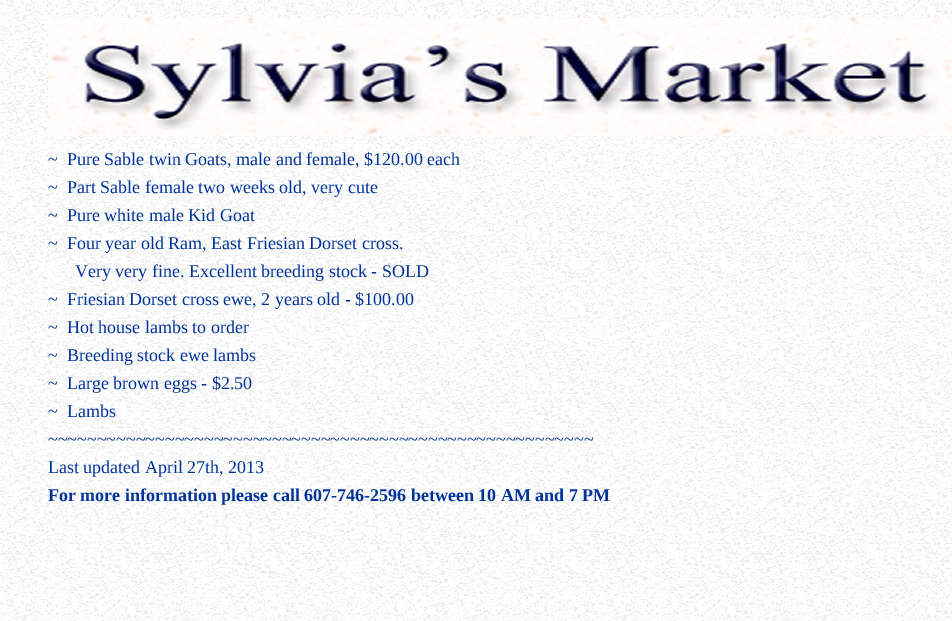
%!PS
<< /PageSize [952 621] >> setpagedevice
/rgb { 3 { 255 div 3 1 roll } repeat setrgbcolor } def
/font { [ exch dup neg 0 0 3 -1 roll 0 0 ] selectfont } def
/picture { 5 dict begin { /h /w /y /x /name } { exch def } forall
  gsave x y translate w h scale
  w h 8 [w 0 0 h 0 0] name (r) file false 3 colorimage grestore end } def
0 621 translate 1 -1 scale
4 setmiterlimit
255 255 255 rgb
0 0 952 621 rectfill
(img/1.rgb) 0 0 952 621 picture
(img/2.rgb) 48 18 904 118 picture
/LiberationSerif-Regular 18 font
0 51 153 rgb
[
  [(~  Pure Sable twin Goats, male and female, $120.00 each) 48 165]
  [(~  Part Sable female two weeks old, very cute) 48 193]
  [(~  Pure white male Kid Goat) 48 221]
  [(~  Four year old Ram, East Friesian Dorset cross.) 48 249]
  [(Very very fine. Excellent breeding stock - SOLD) 75 277]
  [(~  Friesian Dorset cross ewe, 2 years old - $100.00) 48 305]
  [(~  Hot house lambs to order) 48 333]
  [(~  Breeding stock ewe lambs) 48 361]
  [(~  Large brown eggs - $2.50) 48 389]
  [(~  Lambs) 48 417]
  [(~~~~~~~~~~~~~~~~~~~~~~~~~~~~~~~~~~~~~~~~~~~~~~~~~~~~~~~~) 48 445]
  [(Last updated April 27th, 2013) 48 473]
] { aload pop moveto show } forall
/LiberationSerif-Bold 18 font
48 501 moveto (For more information please call 607-746-2596 between 10 AM and 7 PM) show
showpage
